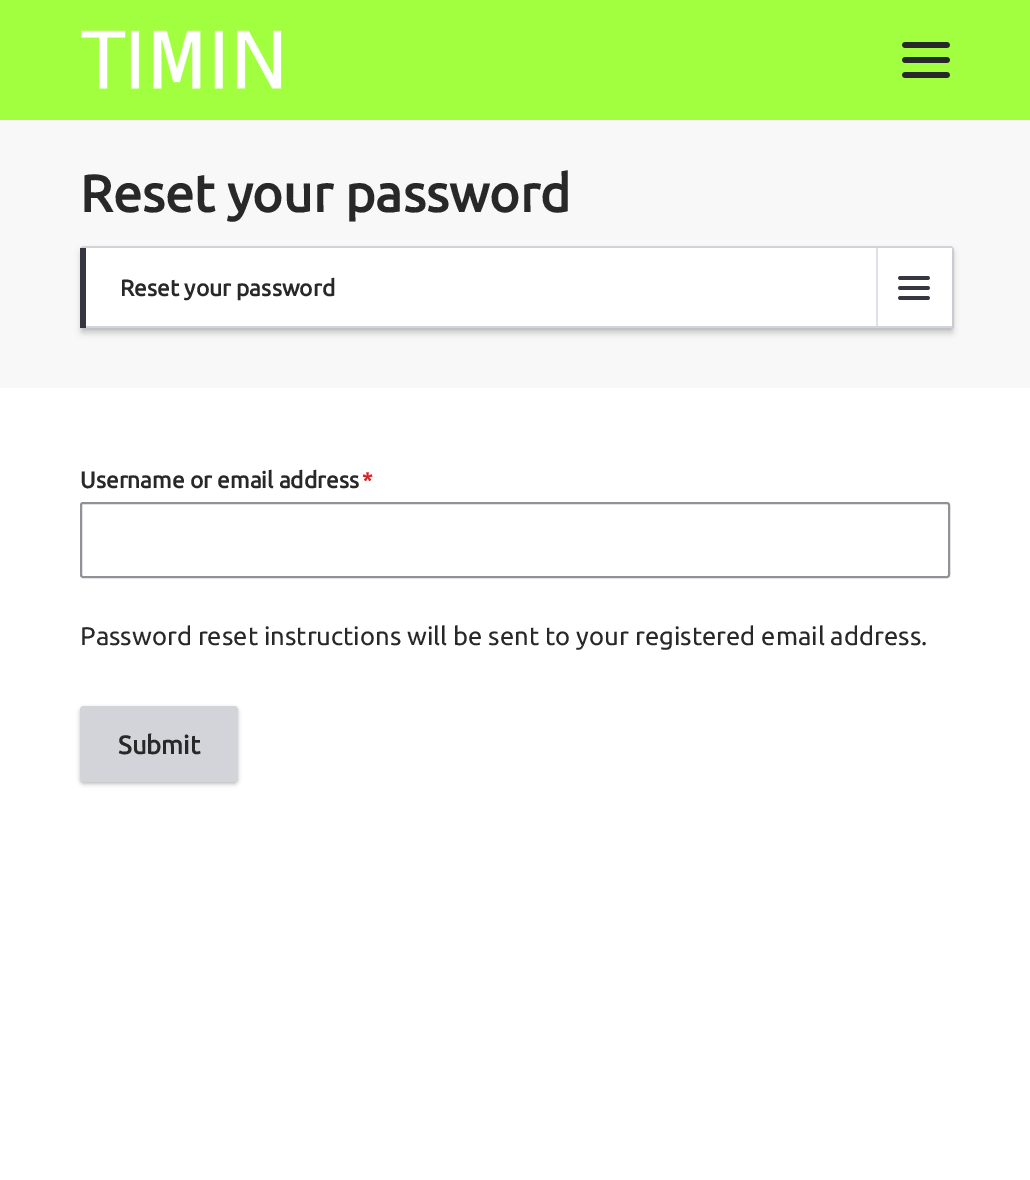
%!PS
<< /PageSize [1030 1180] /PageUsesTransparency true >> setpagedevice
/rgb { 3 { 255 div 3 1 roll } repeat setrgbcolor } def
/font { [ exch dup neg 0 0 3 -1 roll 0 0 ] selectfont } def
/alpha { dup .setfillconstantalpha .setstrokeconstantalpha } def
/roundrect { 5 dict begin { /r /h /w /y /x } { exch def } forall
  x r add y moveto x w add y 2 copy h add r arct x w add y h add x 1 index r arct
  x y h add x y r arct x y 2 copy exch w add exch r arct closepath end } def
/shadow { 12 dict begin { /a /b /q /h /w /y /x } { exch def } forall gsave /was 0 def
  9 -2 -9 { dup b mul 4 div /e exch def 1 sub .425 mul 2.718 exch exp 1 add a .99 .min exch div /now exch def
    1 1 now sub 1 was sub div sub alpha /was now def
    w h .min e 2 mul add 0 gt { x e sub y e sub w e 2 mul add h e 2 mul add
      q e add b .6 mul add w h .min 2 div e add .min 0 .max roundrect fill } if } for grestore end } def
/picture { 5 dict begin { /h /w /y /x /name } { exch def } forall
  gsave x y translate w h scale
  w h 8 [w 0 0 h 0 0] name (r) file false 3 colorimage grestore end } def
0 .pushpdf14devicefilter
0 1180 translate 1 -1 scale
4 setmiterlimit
255 255 255 rgb
0 0 1030 1180 rectfill
162 255 63 rgb
0 0 1030 120 rectfill
(img/1.rgb) 81 30 201 59 picture
(img/2.rgb) 902 42 48 36 picture
248 248 248 rgb
0 120 1030 268 rectfill
0 0 0 rgb
80 250 874 84 4 3 0.1 shadow
211 212 217 rgb
2 setlinewidth
81 247 872 82 3 roundrect stroke
0 0 0 rgb
82 252 870 80 0 3 0.1 shadow
[
  [86 248 866 78 255 255 255]
  [82 326 870 2 211 212 217]
  [80 248 6 80 53 54 65]
  [876 248 2 78 224 225 230]
] { aload pop rgb rectfill } forall
(img/3.rgb) 898 276 32 24 picture
145 146 151 rgb
81 503 868 74 2 roundrect stroke
0 0 0 rgb
80 708 158 76 4 2 0.25 shadow
211 212 217 rgb
80 706 158 76 4 roundrect fill
/Ubuntu-Bold 51.9 font
40 40 40 rgb
80 212 moveto (Reset your password) show
/Ubuntu-Bold 22.75 font
120 296 moveto (Reset your password) show
80 488 moveto (Username or email address) show
/Ubuntu-Bold 22 font
220 35 35 rgb
362 488 moveto (*) show
/Ubuntu-Regular 25.6 font
40 40 40 rgb
80 645 moveto (Password reset instructions will be sent to your registered email address.) show
/Ubuntu-Bold 25.6 font
118 754 moveto (Submit) show
.poppdf14devicefilter showpage
